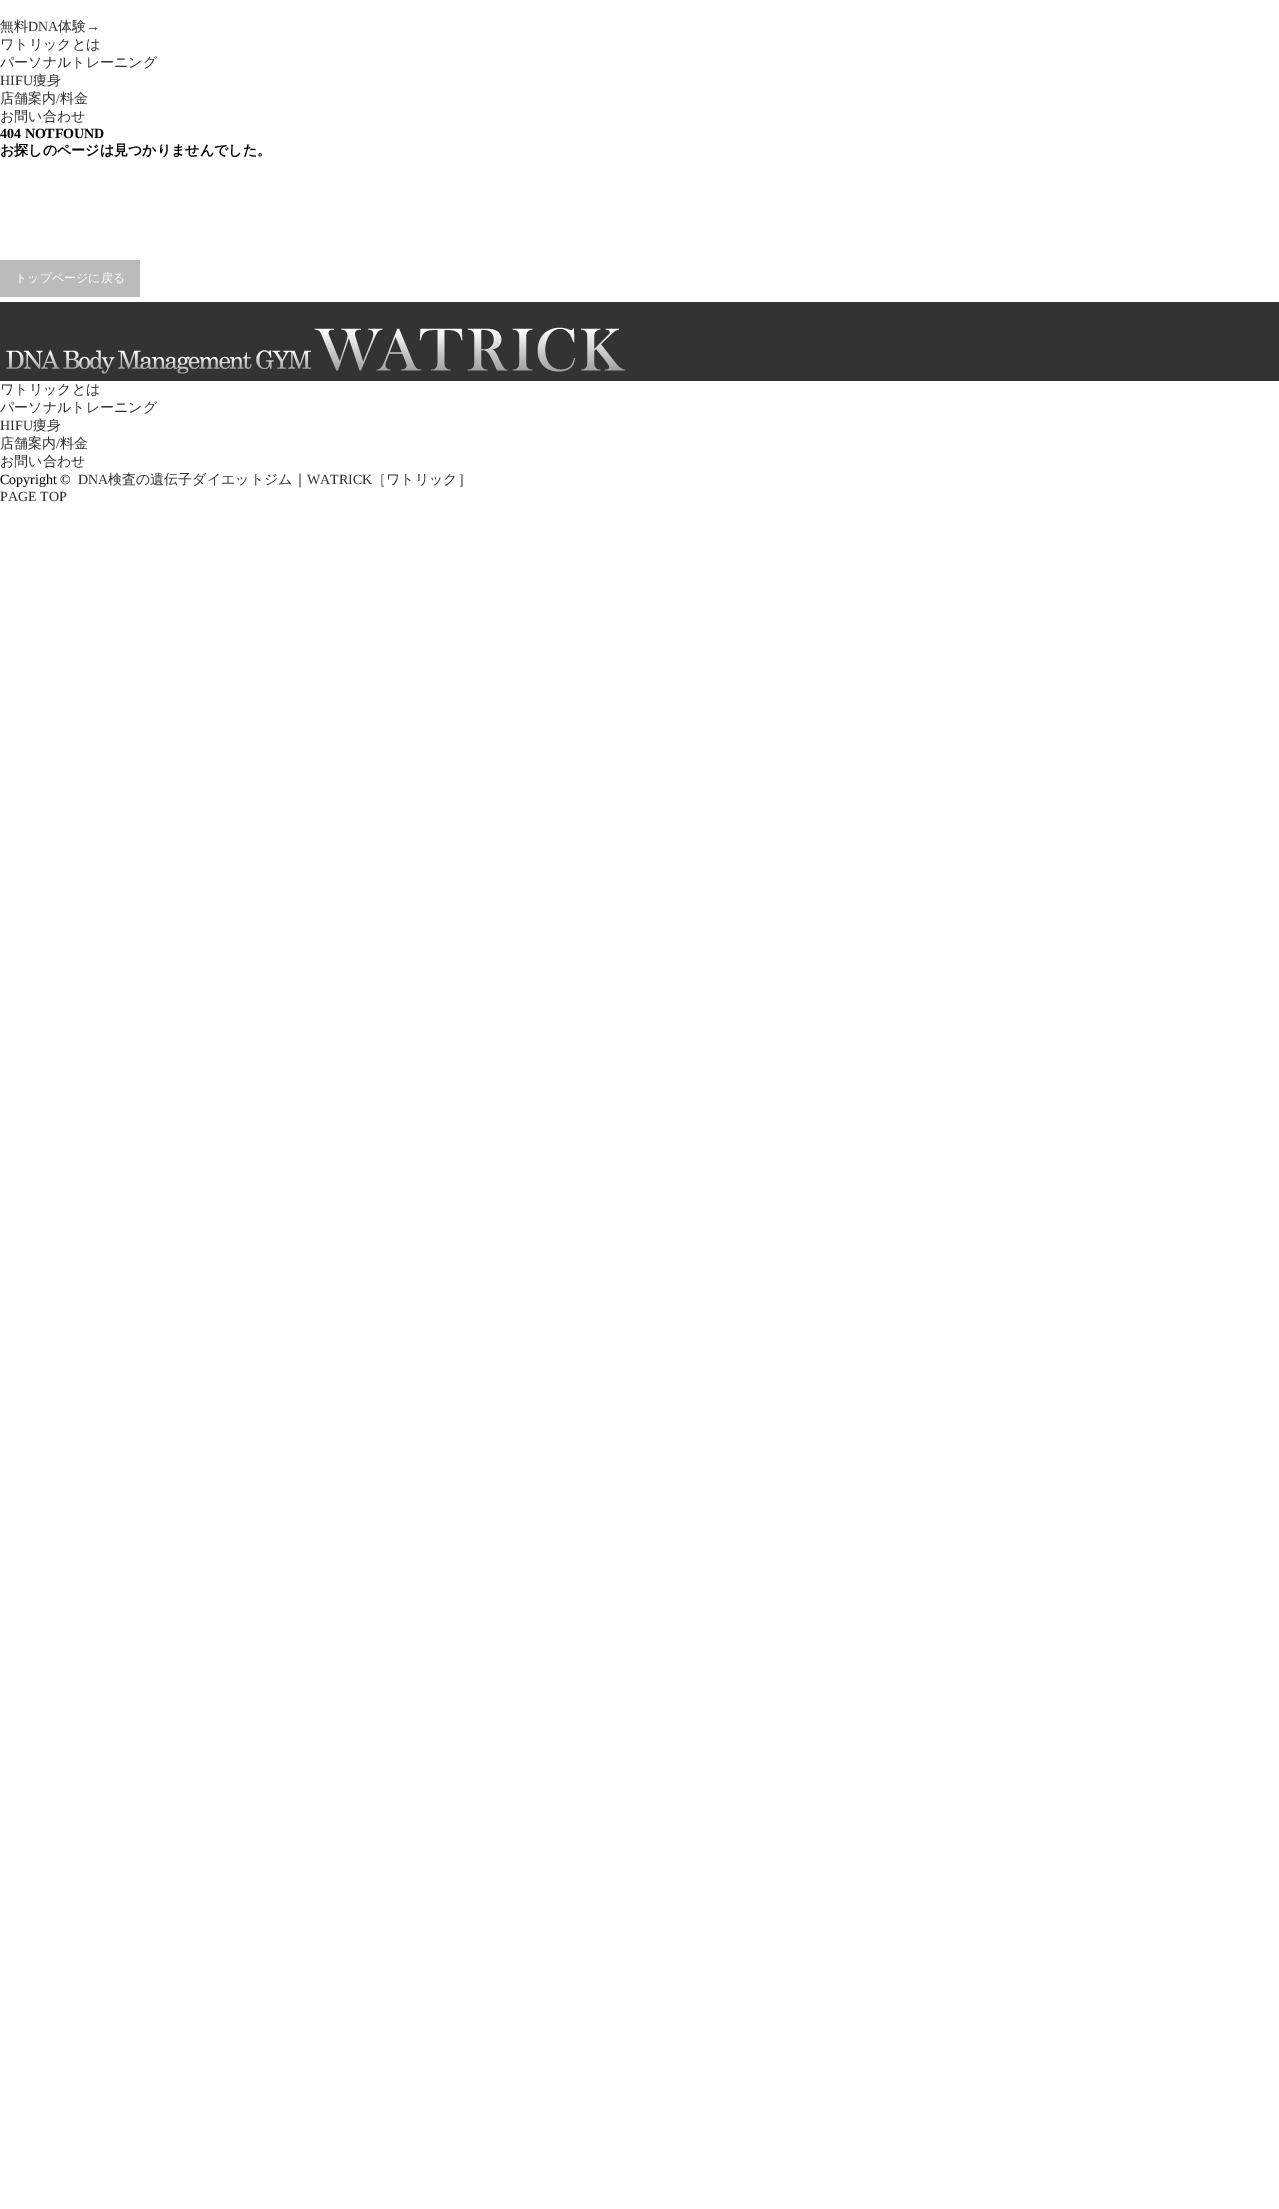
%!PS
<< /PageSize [1279 2209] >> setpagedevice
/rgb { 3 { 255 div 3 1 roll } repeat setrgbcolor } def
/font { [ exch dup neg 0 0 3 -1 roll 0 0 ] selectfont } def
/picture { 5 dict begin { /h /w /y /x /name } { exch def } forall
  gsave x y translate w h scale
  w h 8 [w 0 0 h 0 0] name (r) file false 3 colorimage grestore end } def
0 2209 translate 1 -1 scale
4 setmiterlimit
255 255 255 rgb
0 0 1279 2209 rectfill
187 187 187 rgb
0 260 140 37 rectfill
51 51 51 rgb
0 302 1279 79 rectfill
(img/1.rgb) 6 327 620 47 picture
/WenQuanYiZenHei-Medium 14 font
0 31 moveto (無料) show
/LiberationSerif-Regular 14 font
28 31 moveto (DNA) show
/WenQuanYiZenHei-Medium 14 font
58 31 moveto (体験) show
/LiberationSerif-Regular 14 font
86 31 moveto (→) show
/WenQuanYiZenHei-Medium 14 font
0 49 moveto (ワトリックとは) show
0 67 moveto (パーソナルトレーニング) show
/LiberationSerif-Regular 14 font
0 85 moveto (HIFU) show
/WenQuanYiZenHei-Medium 14 font
33 85 moveto (痩身) show
0 103 moveto (店舗案内) show
/LiberationSerif-Regular 14 font
56 103 moveto (/) show
/WenQuanYiZenHei-Medium 14 font
60 103 moveto (料金) show
0 121 moveto (お問い合わせ) show
/LiberationSerif-Bold 14 font
0 0 0 rgb
0 138 moveto (404 NOTFOUND) show
/WenQuanYiZenHei-Bold 14 font
0 155 moveto (お探しのページは見つかりませんでした。) show
/WenQuanYiZenHei-Medium 12 font
255 255 255 rgb
15 282 moveto (トップページに戻る) show
/WenQuanYiZenHei-Medium 14 font
51 51 51 rgb
0 394 moveto (ワトリックとは) show
0 412 moveto (パーソナルトレーニング) show
/LiberationSerif-Regular 14 font
0 430 moveto (HIFU) show
/WenQuanYiZenHei-Medium 14 font
33 430 moveto (痩身) show
0 448 moveto (店舗案内) show
/LiberationSerif-Regular 14 font
56 448 moveto (/) show
/WenQuanYiZenHei-Medium 14 font
60 448 moveto (料金) show
0 466 moveto (お問い合わせ) show
/LiberationSerif-Regular 14 font
0 0 0 rgb
0 484 moveto (Copyright ©) show
51 51 51 rgb
78 484 moveto (DNA) show
/WenQuanYiZenHei-Medium 14 font
108 484 moveto (検査の遺伝子ダイエットジム｜) show
/LiberationSerif-Regular 14 font
307 484 moveto (WATRICK) show
/WenQuanYiZenHei-Medium 14 font
372 484 moveto (［ワトリック］) show
/LiberationSerif-Regular 14 font
0 501 moveto (PAGE TOP) show
showpage
